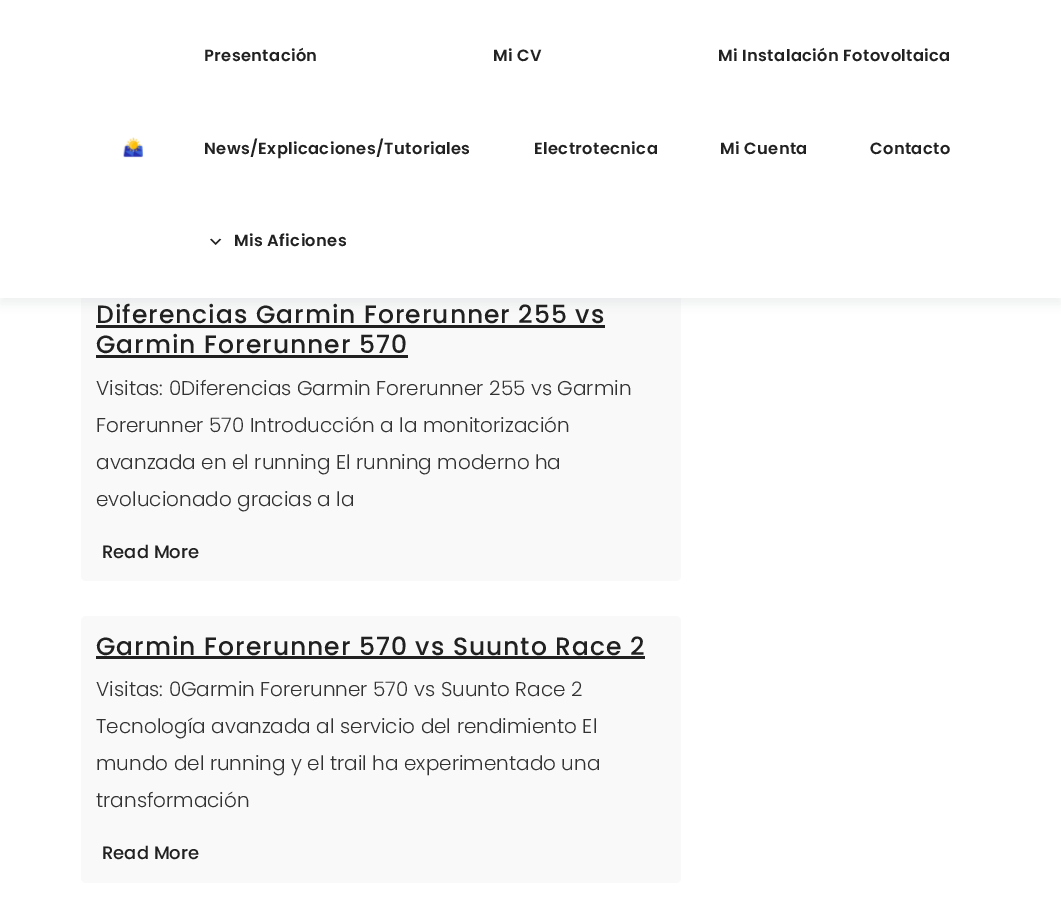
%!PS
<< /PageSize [1061 913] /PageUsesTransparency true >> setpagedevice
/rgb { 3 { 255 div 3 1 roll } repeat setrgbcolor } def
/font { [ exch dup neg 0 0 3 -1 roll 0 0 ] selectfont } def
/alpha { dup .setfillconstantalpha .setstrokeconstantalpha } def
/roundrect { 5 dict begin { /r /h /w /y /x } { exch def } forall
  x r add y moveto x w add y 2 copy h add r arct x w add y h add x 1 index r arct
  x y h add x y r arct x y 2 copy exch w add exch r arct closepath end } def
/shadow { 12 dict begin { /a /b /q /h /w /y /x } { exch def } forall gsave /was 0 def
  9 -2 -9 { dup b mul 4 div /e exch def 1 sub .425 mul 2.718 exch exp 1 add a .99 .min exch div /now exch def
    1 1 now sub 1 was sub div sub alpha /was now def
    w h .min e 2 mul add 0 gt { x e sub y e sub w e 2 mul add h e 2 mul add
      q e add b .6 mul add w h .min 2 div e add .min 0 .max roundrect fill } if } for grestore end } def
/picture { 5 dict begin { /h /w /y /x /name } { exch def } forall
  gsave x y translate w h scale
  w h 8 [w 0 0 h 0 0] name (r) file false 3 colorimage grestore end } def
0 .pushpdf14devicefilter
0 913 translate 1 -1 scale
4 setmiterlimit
255 255 255 rgb
0 0 1061 913 rectfill
249 249 249 rgb
81 285 600 296 5 roundrect fill
138 155 165 rgb
0 6 1061 298 0 6 0.15 shadow
255 255 255 rgb
0 0 1061 298 rectfill
(img/1.rgb) 123 137 21 21 picture
(img/2.rgb) 210 238 12 7 picture
33 33 33 rgb
96 325 509 3 rectfill
96 355 312 3 rectfill
249 249 249 rgb
81 616 600 267 5 roundrect fill
33 33 33 rgb
96 656 549 3 rectfill
/Poppins-SemiBold 16.25 font
204 61 moveto 0.4 0 (Presentación) ashow
493 61 moveto 0.4 0 (Mi CV) ashow
718 61 moveto 0.4 0 (Mi Instalación Fotovoltaica) ashow
204 154 moveto 0.4 0 (News/Explicaciones/Tutoriales) ashow
534 154 moveto 0.4 0 (Electrotecnica) ashow
720 154 moveto 0.4 0 (Mi Cuenta) ashow
870 154 moveto 0.4 0 (Contacto) ashow
234 246 moveto 0.4 0 (Mis Aficiones) ashow
/Poppins-Medium 25 font
96 323 moveto 1 0 (Diferencias Garmin Forerunner 255 vs) ashow
96 353 moveto 1 0 (Garmin Forerunner 570) ashow
/Poppins-Light 20 font
51 51 51 rgb
[
  [(Visitas: 0Diferencias Garmin Forerunner 255 vs Garmin) 96 395]
  [(Forerunner 570 Introducción a la monitorización) 96 432]
  [(avanzada en el running El running moderno ha) 96 469]
  [(evolucionado gracias a la) 96 506]
] { aload pop moveto show } forall
/Poppins-Medium 18 font
33 33 33 rgb
102 558 moveto (Read More) show
/Poppins-Medium 25 font
96 655 moveto 1 0 (Garmin Forerunner 570 vs Suunto Race 2) ashow
/Poppins-Light 20 font
51 51 51 rgb
[
  [(Visitas: 0Garmin Forerunner 570 vs Suunto Race 2) 96 696]
  [(Tecnología avanzada al servicio del rendimiento El) 96 733]
  [(mundo del running y el trail ha experimentado una) 96 770]
  [(transformación) 96 807]
] { aload pop moveto show } forall
/Poppins-Medium 18 font
33 33 33 rgb
102 859 moveto (Read More) show
.poppdf14devicefilter showpage
